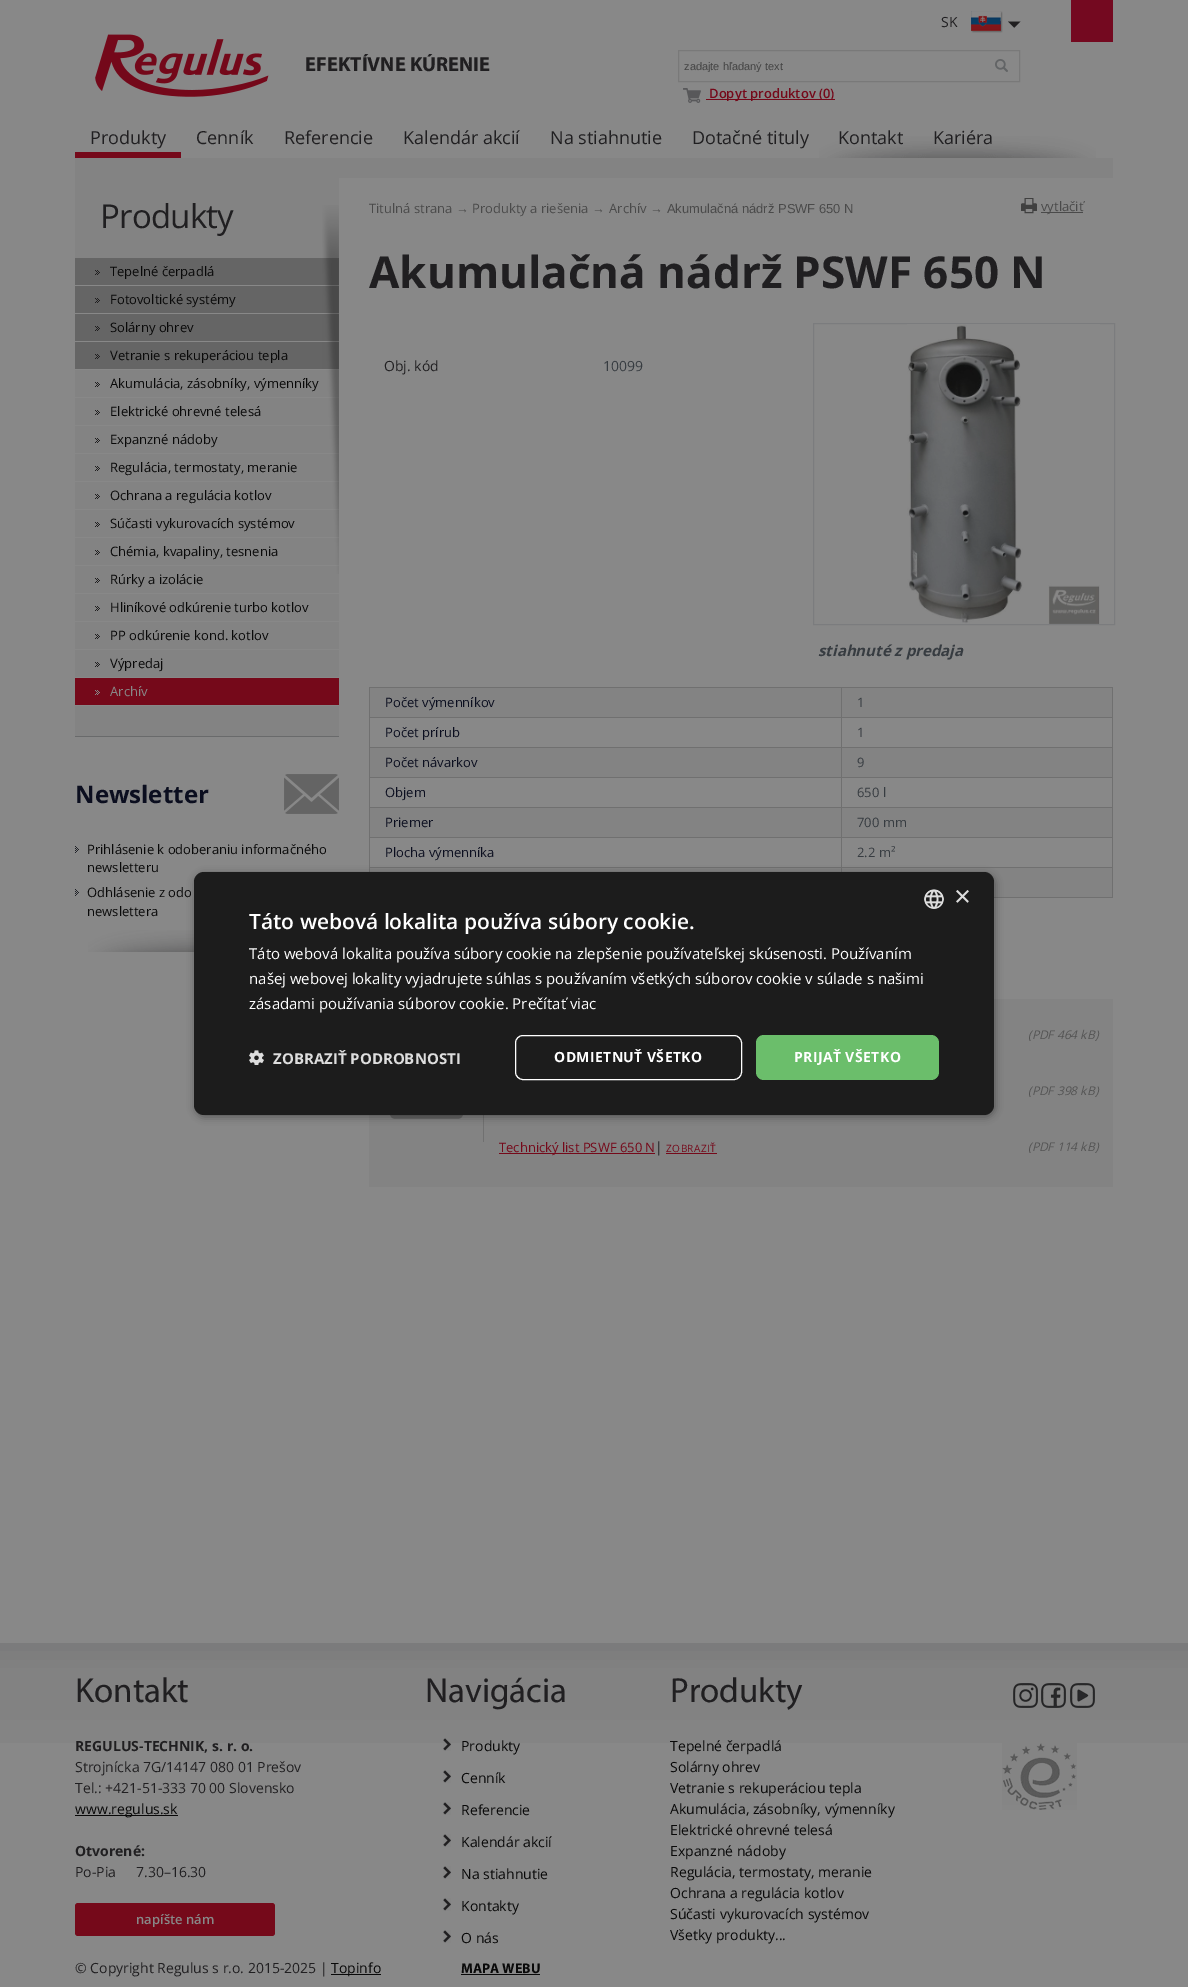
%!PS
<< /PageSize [1188 1987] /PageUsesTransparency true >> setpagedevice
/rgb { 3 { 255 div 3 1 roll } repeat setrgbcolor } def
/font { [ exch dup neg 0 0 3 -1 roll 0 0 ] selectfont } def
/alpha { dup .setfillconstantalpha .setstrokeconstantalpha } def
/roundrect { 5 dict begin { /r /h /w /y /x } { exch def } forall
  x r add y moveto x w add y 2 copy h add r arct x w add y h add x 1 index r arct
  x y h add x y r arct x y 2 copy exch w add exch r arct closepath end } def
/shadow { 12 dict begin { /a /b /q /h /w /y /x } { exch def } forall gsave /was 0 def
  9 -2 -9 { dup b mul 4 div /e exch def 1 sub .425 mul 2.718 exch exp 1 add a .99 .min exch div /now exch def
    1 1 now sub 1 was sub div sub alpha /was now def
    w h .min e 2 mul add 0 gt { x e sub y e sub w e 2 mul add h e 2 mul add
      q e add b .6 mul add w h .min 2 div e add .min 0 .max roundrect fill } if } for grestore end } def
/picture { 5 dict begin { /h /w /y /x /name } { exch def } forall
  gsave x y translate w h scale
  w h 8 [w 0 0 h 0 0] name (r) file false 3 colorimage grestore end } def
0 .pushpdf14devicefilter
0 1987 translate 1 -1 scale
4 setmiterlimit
136 136 136 rgb
0 0 1188 1987 rectfill
(img/1.rgb) 819 136 277 22 picture
116 9 32 rgb
1071 0 42 42 rectfill
(img/2.rgb) 1008 21 13 7 picture
(img/3.rgb) 971 11 32 22 picture
(img/4.rgb) 95 34 174 63 picture
121 121 121 rgb
678.5 50.5 341 31 rectstroke
(img/5.rgb) 995 59 13 13 picture
(img/6.rgb) 683 88 18 15 picture
[
  [706 99 129 1 117 9 26]
  [75 152 106 6 117 9 26]
  [75 158 264 578 131 131 131]
  [75 736 264 1 105 106 107]
  [75 258 264 27 101 101 101]
] { aload pop rgb rectfill } forall
(img/7.rgb) 95 270 5 5 picture
136 136 136 rgb
75 285 264 1 rectfill
101 101 101 rgb
75 286 264 27 rectfill
(img/7.rgb) 95 298 5 5 picture
136 136 136 rgb
75 313 264 1 rectfill
101 101 101 rgb
75 314 264 27 rectfill
(img/7.rgb) 95 326 5 5 picture
136 136 136 rgb
75 341 264 1 rectfill
101 101 101 rgb
75 342 264 27 rectfill
(img/7.rgb) 95 354 5 5 picture
136 136 136 rgb
75 369 264 1 rectfill
(img/8.rgb) 95 382 5 5 picture
75 397 264 1 rectfill
(img/8.rgb) 95 410 5 5 picture
75 425 264 1 rectfill
(img/8.rgb) 95 438 5 5 picture
75 453 264 1 rectfill
(img/8.rgb) 95 466 5 5 picture
75 481 264 1 rectfill
(img/8.rgb) 95 494 5 5 picture
75 509 264 1 rectfill
(img/8.rgb) 95 522 5 5 picture
75 537 264 1 rectfill
(img/8.rgb) 95 550 5 5 picture
75 565 264 1 rectfill
(img/8.rgb) 95 578 5 5 picture
75 593 264 1 rectfill
(img/8.rgb) 95 606 5 5 picture
75 621 264 1 rectfill
(img/8.rgb) 95 634 5 5 picture
75 649 264 1 rectfill
(img/8.rgb) 95 662 5 5 picture
75 677 264 1 rectfill
117 9 26 rgb
75 678 264 27 rectfill
(img/9.rgb) 95 690 5 5 picture
136 136 136 rgb
75 705 264 1 rectfill
(img/10.rgb) 322 205 17 369 picture
(img/11.rgb) 88 930 106 22 picture
(img/12.rgb) 284 774 55 40 picture
(img/13.rgb) 75 846 4 7 picture
(img/13.rgb) 75 889 4 7 picture
131 131 131 rgb
339 158 774 20 rectfill
(img/14.rgb) 1021 198 16 16 picture
74 74 74 rgb
1041 212 42 1 rectfill
123 124 126 rgb
813.5 323.5 301 301 rectstroke
(img/15.rgb) 907 324 193 300 picture
[
  [370 688 471 29 131 131 131]
  [841 687 272 1 112 112 112]
  [841 717 272 1 112 112 112]
  [841 747 272 1 112 112 112]
  [841 777 272 1 112 112 112]
  [841 807 272 1 112 112 112]
  [841 837 272 1 112 112 112]
  [841 867 272 1 112 112 112]
  [841 867 1 5 112 112 112]
  [369 867 473 1 112 112 112]
  [841 837 1 31 112 112 112]
  [369 837 473 1 112 112 112]
  [841 807 1 31 112 112 112]
  [369 807 473 1 112 112 112]
  [841 777 1 31 112 112 112]
  [369 777 473 1 112 112 112]
  [841 747 1 31 112 112 112]
  [369 747 473 1 112 112 112]
  [841 717 1 31 112 112 112]
  [369 717 473 1 112 112 112]
  [841 687 1 31 112 112 112]
  [369 687 473 1 112 112 112]
  [369 867 1 5 112 112 112]
  [369 837 1 31 112 112 112]
  [369 807 1 31 112 112 112]
  [369 777 1 31 112 112 112]
  [369 747 1 31 112 112 112]
  [369 717 1 31 112 112 112]
  [369 687 1 31 112 112 112]
  [842 688 270 29 131 131 131]
  [1112 867 1 31 112 112 112]
  [1112 837 1 31 112 112 112]
  [1112 807 1 31 112 112 112]
  [1112 777 1 31 112 112 112]
  [1112 747 1 31 112 112 112]
  [1112 717 1 31 112 112 112]
  [1112 687 1 31 112 112 112]
  [370 748 471 29 131 131 131]
  [842 748 270 29 131 131 131]
  [370 808 471 29 131 131 131]
  [842 808 270 29 131 131 131]
  [370 868 471 4 131 131 131]
  [842 868 270 29 131 131 131]
  [994 897 119 1 112 112 112]
  [369 999 744 188 131 131 131]
] { aload pop rgb rectfill } forall
(img/16.rgb) 390 1115 94 27 picture
117 9 26 rgb
499 1153 156 1 rectfill
666 1153 51 1 rectfill
(img/17.rgb) 0 1643 1188 100 picture
9 9 9 rgb
75 1815 103 1 rectfill
117 9 26 rgb
75 1903 200 33 3 roundrect fill
9 9 9 rgb
331 1974 50 1 rectfill
(img/18.rgb) 443 1738 8 13 picture
(img/19.rgb) 443 1770 8 13 picture
(img/19.rgb) 443 1802 8 13 picture
(img/19.rgb) 443 1834 8 13 picture
(img/19.rgb) 443 1866 8 13 picture
(img/19.rgb) 443 1898 8 13 picture
(img/19.rgb) 443 1930 8 13 picture
461 1974 79 1 rectfill
(img/20.rgb) 1013 1683 25 25 picture
(img/21.rgb) 1041 1683 25 25 picture
(img/22.rgb) 1070 1683 25 25 picture
(img/23.rgb) 1002 1743 75 67 picture
0 0 0 rgb
195 874 800 243 10 4 0.35 shadow
28 28 28 rgb
194 872 800 243 10 roundrect fill
(img/24.rgb) 924 889 20 20 picture
(img/25.rgb) 249 1050 15 15 picture
255 255 255 rgb
515.5 1035.5 226 44 7.5 roundrect stroke
107 190 107 rgb
756 1035 183 45 8 roundrect fill
/OpenSans-Regular 14 font
32 31 33 rgb
941 27 moveto (SK) show
/Myriad-Bold 20.5 font
305 71 moveto (EFEKTÍVNE KÚRENIE) show
gsave
684 60 330 12 rectclip
/LiberationSans-Regular 11 font
67 67 67 rgb
684 70 moveto (zadajte hľadaný text) show
grestore
/OpenSans-SemiBold 13 font
117 9 26 rgb
709 98 moveto (Dopyt produktov \(0\)) show
/OpenSans-Regular 18 font
32 31 33 rgb
[
  [(Produkty) 90 144]
  [(Cenník) 196 144]
  [(Referencie) 284 144]
  [(Kalendár akcií) 403 144]
  [(Na stiahnutie) 550 144]
  [(Dotačné tituly) 692 144]
  [(Kontakt) 838 144]
  [(Kariéra) 933 144]
] { aload pop moveto show } forall
/OpenSans-Regular 33 font
100 228 moveto -0.75 0 (Produkty) ashow
/OpenSans-Regular 13 font
9 9 9 rgb
[
  [(Tepelné čerpadlá) 110 276]
  [(Fotovoltické systémy) 110 304]
  [(Solárny ohrev) 110 332]
  [(Vetranie s rekuperáciou tepla) 110 360]
  [(Akumulácia, zásobníky, výmenníky) 110 388]
  [(Elektrické ohrevné telesá) 110 416]
  [(Expanzné nádoby) 110 444]
  [(Regulácia, termostaty, meranie) 110 472]
  [(Ochrana a regulácia kotlov) 110 500]
  [(Súčasti vykurovacích systémov) 110 528]
  [(Chémia, kvapaliny, tesnenia) 110 556]
  [(Rúrky a izolácie) 110 584]
  [(Hliníkové odkúrenie turbo kotlov) 110 612]
  [(PP odkúrenie kond. kotlov) 110 640]
  [(Výpredaj) 110 668]
] { aload pop moveto show } forall
136 136 136 rgb
110 696 moveto (Archív) show
/OpenSans-Bold 24 font
11 14 31 rgb
75 803 moveto (Newsletter) show
/OpenSans-Regular 13 font
9 9 9 rgb
[
  [(Prihlásenie k odoberaniu informačného) 87 854]
  [(newsletteru) 87 872]
  [(Odhlásenie z odo) 87 897]
  [(newslettera) 87 916]
] { aload pop moveto show } forall
74 74 74 rgb
369 213 moveto (Titulná strana) show
/LiberationSans-Regular 13 font
456 213 moveto (→) show
/OpenSans-Regular 13 font
472 213 moveto (Produkty a riešenia) show
/LiberationSans-Regular 13 font
592 213 moveto (→) show
/OpenSans-Regular 13 font
609 213 moveto (Archív) show
/LiberationSans-Regular 13 font
650 213 moveto (→ Akumulačná nádrž PSWF 650 N) show
/OpenSans-Regular 13 font
1041 211 moveto (vytlačiť) show
/OpenSans-Bold 44 font
32 31 33 rgb
369 288 moveto (Akumulačná nádrž PSWF 650 N) show
/OpenSans-Regular 14 font
384 371 moveto (Obj. kód) show
55 60 65 rgb
603 371 moveto (10099) show
/OpenSans-BoldItalic 15 font
818 656 moveto (stiahnuté z predaja) show
/OpenSans-Regular 13 font
11 14 31 rgb
385 707 moveto (Počet výmenníkov) show
55 60 65 rgb
857 707 moveto (1) show
11 14 31 rgb
385 737 moveto (Počet prírub) show
55 60 65 rgb
857 737 moveto (1) show
11 14 31 rgb
385 767 moveto (Počet návarkov) show
55 60 65 rgb
857 767 moveto (9) show
11 14 31 rgb
385 797 moveto (Objem) show
55 60 65 rgb
857 797 moveto (650 l) show
11 14 31 rgb
385 827 moveto (Priemer) show
55 60 65 rgb
857 827 moveto (700 mm) show
11 14 31 rgb
385 857 moveto (Plocha výmenníka) show
55 60 65 rgb
857 857 moveto (2.2 m²) show
/OpenSans-Italic 12 font
85 85 85 rgb
1028 1039 moveto (\(PDF 464 kB\)) show
1028 1095 moveto (\(PDF 398 kB\)) show
/OpenSans-Regular 13 font
117 9 26 rgb
499 1152 moveto (Technický list PSWF 650 N) show
/OpenSans-Regular 14 font
32 31 33 rgb
655 1152 moveto (|) show
/OpenSans-Regular 10 font
117 9 26 rgb
666 1152 moveto 0.5 0 (ZOBRAZIŤ) ashow
/OpenSans-Italic 12 font
85 85 85 rgb
1028 1151 moveto (\(PDF 114 kB\)) show
/Myriad-Regular 35 font
32 31 33 rgb
75 1702 moveto (Kontakt) show
/OpenSans-Bold 14 font
75 1751 moveto (REGULUS-TECHNIK, s. r. o.) show
/OpenSans-Regular 14 font
75 1772 moveto (Strojnícka 7G/14147 080 01 Prešov) show
75 1793 moveto (Tel.: +421-51-333 70 00 Slovensko) show
9 9 9 rgb
75 1814 moveto (www.regulus.sk) show
/OpenSans-Bold 14 font
32 31 33 rgb
75 1856 moveto (Otvorené:) show
/OpenSans-Regular 14 font
75 1877 moveto (Po-Pia) show
136 1877 moveto (7.30–16.30) show
/OpenSans-SemiBold 13 font
136 136 136 rgb
136 1924 moveto (napíšte nám) show
/OpenSans-Regular 14 font
32 31 33 rgb
75 1973 moveto (© Copyright Regulus s r.o. 2015-2025 |) show
9 9 9 rgb
331 1973 moveto (Topinfo) show
/Myriad-Regular 35 font
32 31 33 rgb
425 1702 moveto (Navigácia) show
/OpenSans-Regular 14 font
9 9 9 rgb
[
  [(Produkty) 461 1751]
  [(Cenník) 461 1783]
  [(Referencie) 461 1815]
  [(Kalendár akcií) 461 1847]
  [(Na stiahnutie) 461 1879]
  [(Kontakty) 461 1911]
  [(O nás) 461 1943]
] { aload pop moveto show } forall
/Myriad-Bold 14 font
461 1973 moveto (MAPA WEBU) show
/Myriad-Regular 35 font
32 31 33 rgb
670 1702 moveto (Produkty) show
/OpenSans-Regular 14 font
9 9 9 rgb
[
  [(Tepelné čerpadlá) 670 1751]
  [(Solárny ohrev) 670 1772]
  [(Vetranie s rekuperáciou tepla) 670 1793]
  [(Akumulácia, zásobníky, výmenníky) 670 1814]
  [(Elektrické ohrevné telesá) 670 1835]
  [(Expanzné nádoby) 670 1856]
  [(Regulácia, termostaty, meranie) 670 1877]
  [(Ochrana a regulácia kotlov) 670 1898]
  [(Súčasti vykurovacích systémov) 670 1919]
  [(Všetky produkty...) 670 1940]
] { aload pop moveto show } forall
/LiberationSans-Regular 29 font
221 221 221 rgb
954 906 moveto (×) show
/OpenSans-SemiBold 21 font
255 255 255 rgb
249 929 moveto (Táto webová lokalita používa súbory cookie.) show
/OpenSans-Regular 15 font
[
  [(Táto webová lokalita používa súbory cookie na zlepšenie používateľskej skúsenosti. Používaním) 249 959]
  [(našej webovej lokality vyjadrujete súhlas s používaním všetkých súborov cookie v súlade s našimi) 249 984]
  [(zásadami používania súborov cookie. Prečítať viac) 249 1009]
] { aload pop moveto show } forall
/OpenSans-Bold 15 font
221 221 221 rgb
273 1064 moveto (ZOBRAZIŤ PODROBNOSTI) show
/OpenSans-Bold 14 font
255 255 255 rgb
554 1062 moveto 0.4 0 (ODMIETNUŤ VŠETKO) ashow
794 1062 moveto 0.4 0 (PRIJAŤ VŠETKO) ashow
.poppdf14devicefilter showpage
